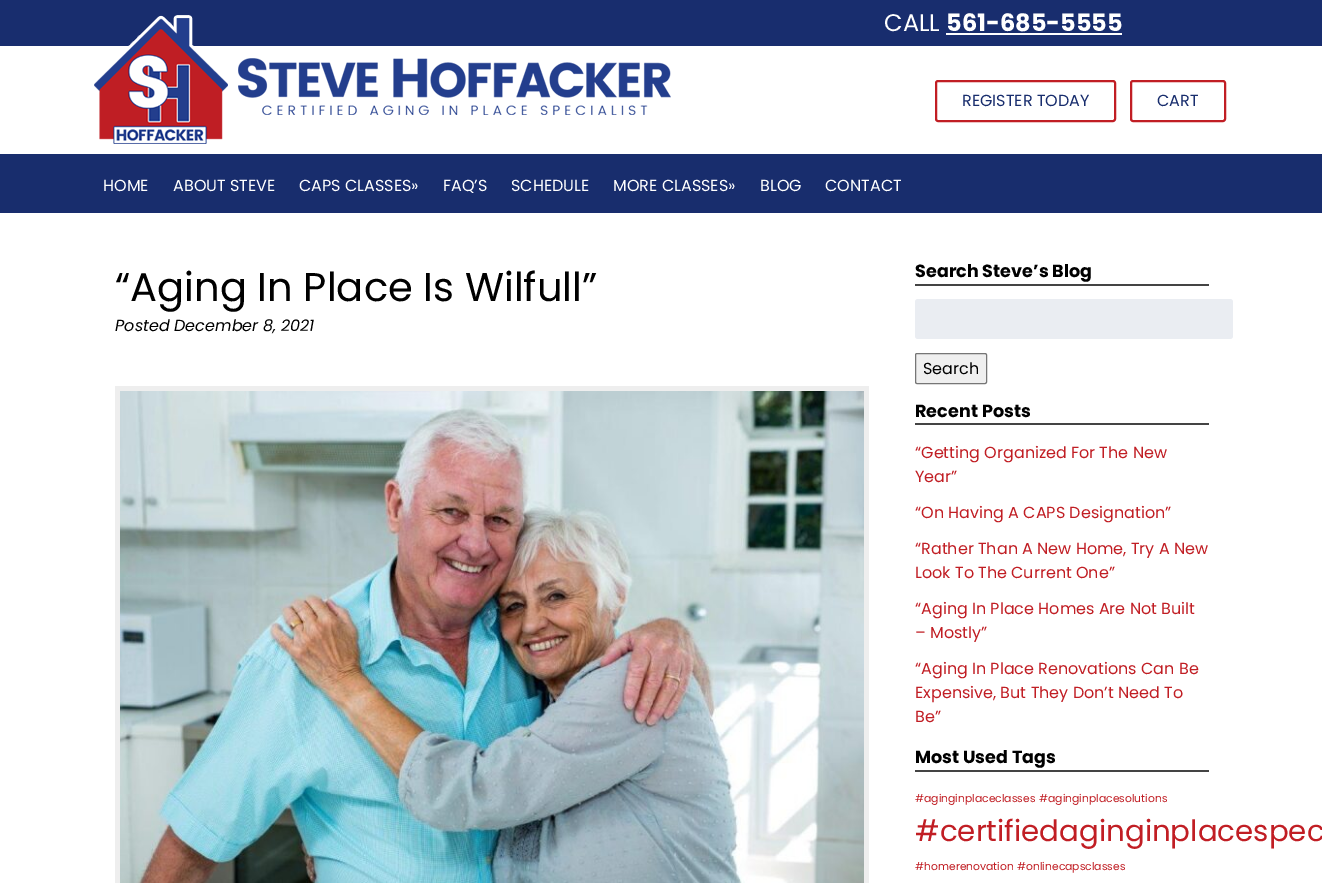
%!PS
<< /PageSize [1322 883] >> setpagedevice
/rgb { 3 { 255 div 3 1 roll } repeat setrgbcolor } def
/font { [ exch dup neg 0 0 3 -1 roll 0 0 ] selectfont } def
/roundrect { 5 dict begin { /r /h /w /y /x } { exch def } forall
  x r add y moveto x w add y 2 copy h add r arct x w add y h add x 1 index r arct
  x y h add x y r arct x y 2 copy exch w add exch r arct closepath end } def
/picture { 5 dict begin { /h /w /y /x /name } { exch def } forall
  gsave x y translate w h scale
  w h 8 [w 0 0 h 0 0] name (r) file false 3 colorimage grestore end } def
0 883 translate 1 -1 scale
4 setmiterlimit
255 255 255 rgb
0 0 1322 883 rectfill
24 45 110 rgb
0 0 1322 46 rectfill
(img/1.rgb) 94 15 577 129 picture
255 255 255 rgb
946 33 176 2 rectfill
193 30 36 rgb
2 setlinewidth
936 81 179 40 2 roundrect stroke
1131 81 94 40 2 roundrect stroke
24 45 109 rgb
0 154 1322 59 rectfill
238 238 238 rgb
115 386 754 497 rectfill
(img/2.rgb) 120 391 744 492 picture
68 68 68 rgb
915 284 294 2 rectfill
234 237 242 rgb
915 299 318 40 3 roundrect fill
239 239 239 rgb
915.5 353.5 71 30 1.5 roundrect gsave fill grestore
118 118 118 rgb
1 setlinewidth
stroke
68 68 68 rgb
915 423 294 2 rectfill
915 770 294 2 rectfill
/Poppins-Regular 24 font
255 255 255 rgb
884 31 moveto (CALL) show
/Poppins-Bold 24 font
946 31 moveto (561-685-5555) show
/Poppins-Regular 16 font
24 45 109 rgb
962 106 moveto (REGISTER TODAY) show
1157 106 moveto (CART) show
255 255 255 rgb
[
  [(HOME) 103 191]
  [(ABOUT STEVE) 173 191]
  [(CAPS CLASSES») 299 191]
  [(FAQ’S) 443 191]
  [(SCHEDULE) 511 191]
  [(MORE CLASSES») 613 191]
  [(BLOG) 760 191]
  [(CONTACT) 825 191]
] { aload pop moveto show } forall
/Poppins-Regular 40 font
0 0 0 rgb
115 301 moveto (“Aging In Place Is Wilfull”) show
/Poppins-Italic 16 font
115 331 moveto (Posted December 8, 2021) show
/Poppins-Bold 17.6 font
915 277 moveto (Search Steve’s Blog) show
/Poppins-Regular 16 font
923 374 moveto (Search) show
/Poppins-Bold 17.6 font
915 417 moveto (Recent Posts) show
/Poppins-Regular 16 font
193 30 36 rgb
[
  [(“Getting Organized For The New) 915 458]
  [(Year”) 915 482]
  [(“On Having A CAPS Designation”) 915 518]
  [(“Rather Than A New Home, Try A New) 915 554]
  [(Look To The Current One”) 915 578]
  [(“Aging In Place Homes Are Not Built) 915 614]
  [(– Mostly”) 915 638]
  [(“Aging In Place Renovations Can Be) 915 674]
  [(Expensive, But They Don’t Need To) 915 698]
  [(Be”) 915 722]
] { aload pop moveto show } forall
/Poppins-Bold 17.6 font
0 0 0 rgb
915 763 moveto (Most Used Tags) show
/Poppins-Regular 10.75 font
193 30 36 rgb
915 802 moveto (#aginginplaceclasses) show
1039 802 moveto (#aginginplacesolutions) show
/Poppins-Regular 29.3 font
915 841 moveto (#certifiedaginginplacespec) show
/Poppins-Regular 10.75 font
915 870 moveto (#homerenovation) show
1017 870 moveto (#onlinecapsclasses) show
showpage
